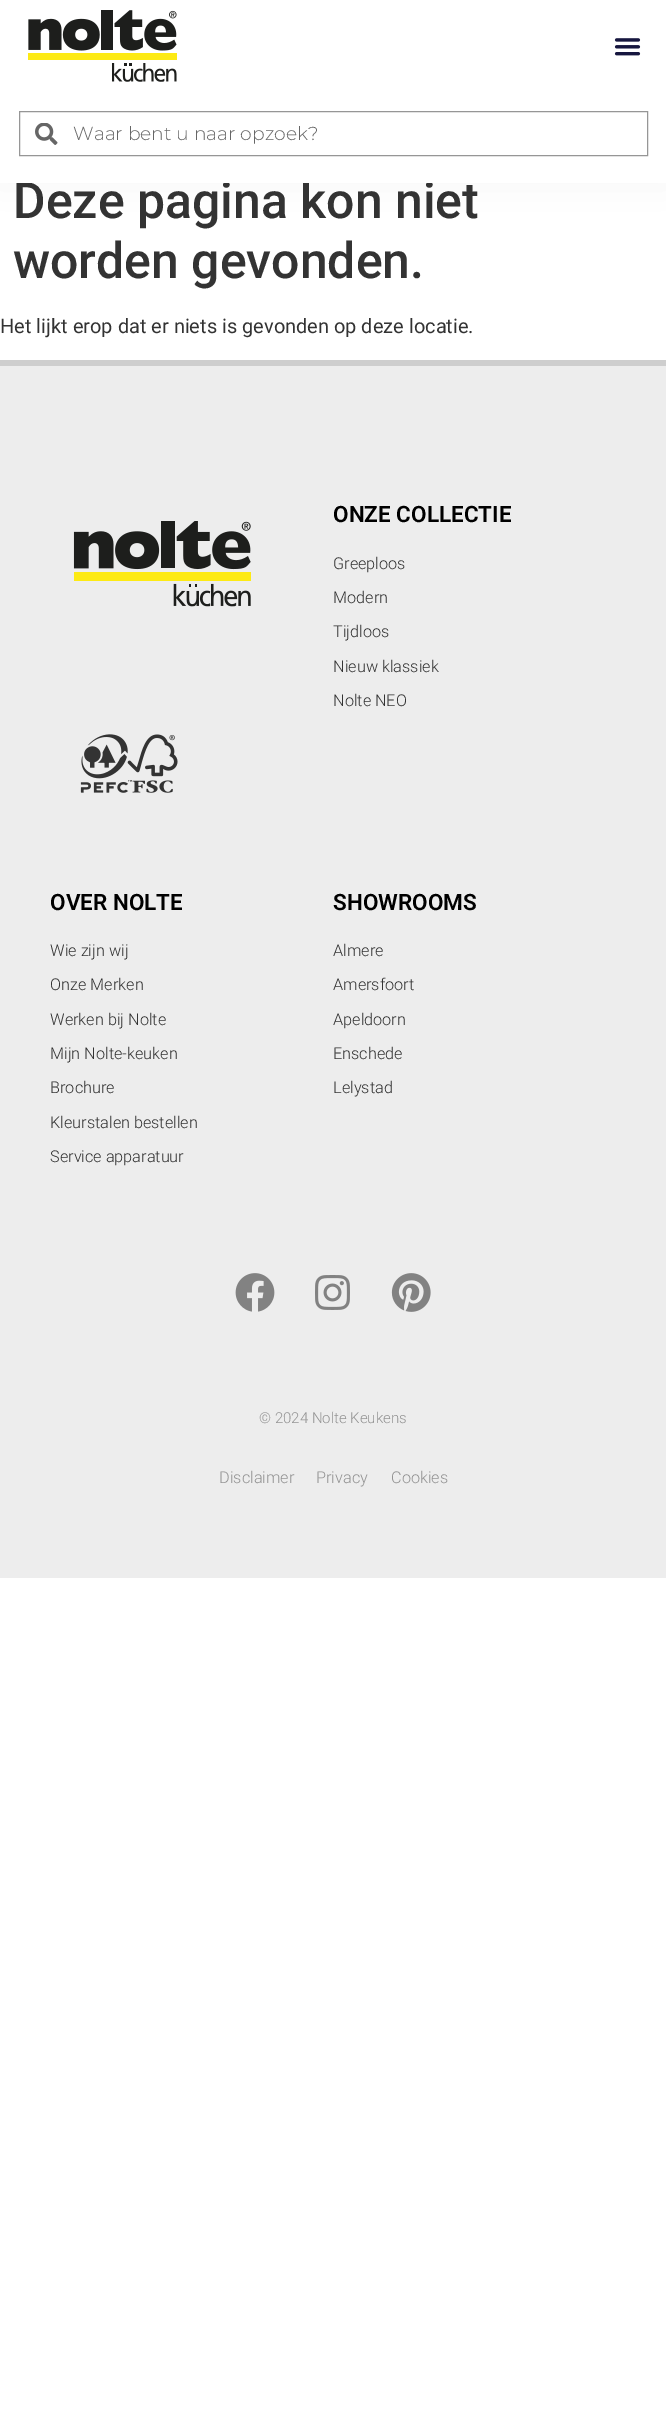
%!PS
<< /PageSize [666 2416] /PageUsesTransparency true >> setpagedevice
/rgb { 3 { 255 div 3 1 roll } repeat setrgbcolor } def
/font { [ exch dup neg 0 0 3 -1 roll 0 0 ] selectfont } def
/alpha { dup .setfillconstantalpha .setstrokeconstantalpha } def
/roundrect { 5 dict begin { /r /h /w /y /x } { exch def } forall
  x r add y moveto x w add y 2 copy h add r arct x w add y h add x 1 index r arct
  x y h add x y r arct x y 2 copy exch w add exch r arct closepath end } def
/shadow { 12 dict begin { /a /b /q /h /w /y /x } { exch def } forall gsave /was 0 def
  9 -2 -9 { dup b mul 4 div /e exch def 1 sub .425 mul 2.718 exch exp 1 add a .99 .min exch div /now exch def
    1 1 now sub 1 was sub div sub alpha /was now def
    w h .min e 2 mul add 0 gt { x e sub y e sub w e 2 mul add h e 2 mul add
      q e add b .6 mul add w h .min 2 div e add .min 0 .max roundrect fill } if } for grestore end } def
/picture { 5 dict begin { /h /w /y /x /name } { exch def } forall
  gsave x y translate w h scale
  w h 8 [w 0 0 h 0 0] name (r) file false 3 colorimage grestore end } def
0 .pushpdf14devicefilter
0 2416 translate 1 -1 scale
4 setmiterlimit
255 255 255 rgb
0 0 666 2416 rectfill
0 0 0 rgb
0 6 666 163 0 19 0.1 shadow
237 237 237 rgb
0 366 666 1212 rectfill
206 206 206 rgb
0 360 666 6 rectfill
(img/4.rgb) 73 521 178 86 picture
(img/5.rgb) 80 734 52 59 picture
(img/6.rgb) 127 734 51 59 picture
(img/7.rgb) 235 1273 40 39 picture
(img/8.rgb) 315 1275 35 35 picture
(img/9.rgb) 391 1273 40 39 picture
/Roboto-Medium 50 font
51 51 51 rgb
13 218 moveto (Deze pagina kon niet) show
255 255 255 rgb
0 0 666 183 rectfill
(img/1.rgb) 28 10 149 72 picture
150 150 150 rgb
19.5 111.5 628 44 rectstroke
(img/3.rgb) 35 123 23 22 picture
/Montserrat-Light 18.75 font
102 102 102 rgb
73 140 moveto (Waar bent u naar opzoek?) show
(img/2.rgb) 614 38 27 18 picture
/Roboto-Medium 50 font
51 51 51 rgb
13 278 moveto (worden gevonden.) show
/Roboto-Regular 20 font
0 333 moveto (Het lijkt erop dat er niets is gevonden op deze locatie.) show
/Roboto-SemiBold 22.5 font
0 0 0 rgb
333 522 moveto (ONZE COLLECTIE) show
/Roboto-Light 16.25 font
51 51 51 rgb
[
  [(Greeploos) 333 569]
  [(Modern) 333 603]
  [(Tijdloos) 333 637]
  [(Nieuw klassiek) 333 672]
  [(Nolte NEO) 333 706]
] { aload pop moveto show } forall
/Roboto-SemiBold 22.5 font
0 0 0 rgb
50 910 moveto (OVER NOLTE) show
/Roboto-Light 16.25 font
51 51 51 rgb
[
  [(Wie zijn wij) 50 956]
  [(Onze Merken) 50 990]
  [(Werken bij Nolte) 50 1025]
  [(Mijn Nolte-keuken) 50 1059]
  [(Brochure) 50 1093]
  [(Kleurstalen bestellen) 50 1128]
  [(Service apparatuur) 50 1162]
] { aload pop moveto show } forall
/Roboto-SemiBold 22.5 font
0 0 0 rgb
333 910 moveto (SHOWROOMS) show
/Roboto-Light 16.25 font
51 51 51 rgb
[
  [(Almere) 333 956]
  [(Amersfoort) 333 990]
  [(Apeldoorn) 333 1025]
  [(Enschede) 333 1059]
  [(Lelystad) 333 1093]
] { aload pop moveto show } forall
/Roboto-Light 15 font
147 147 147 rgb
259 1423 moveto (© 2024 Nolte Keukens) show
/Roboto-Light 16.25 font
[
  [(Disclaimer) 219 1483]
  [(Privacy) 316 1483]
  [(Cookies) 391 1483]
] { aload pop moveto show } forall
.poppdf14devicefilter showpage
